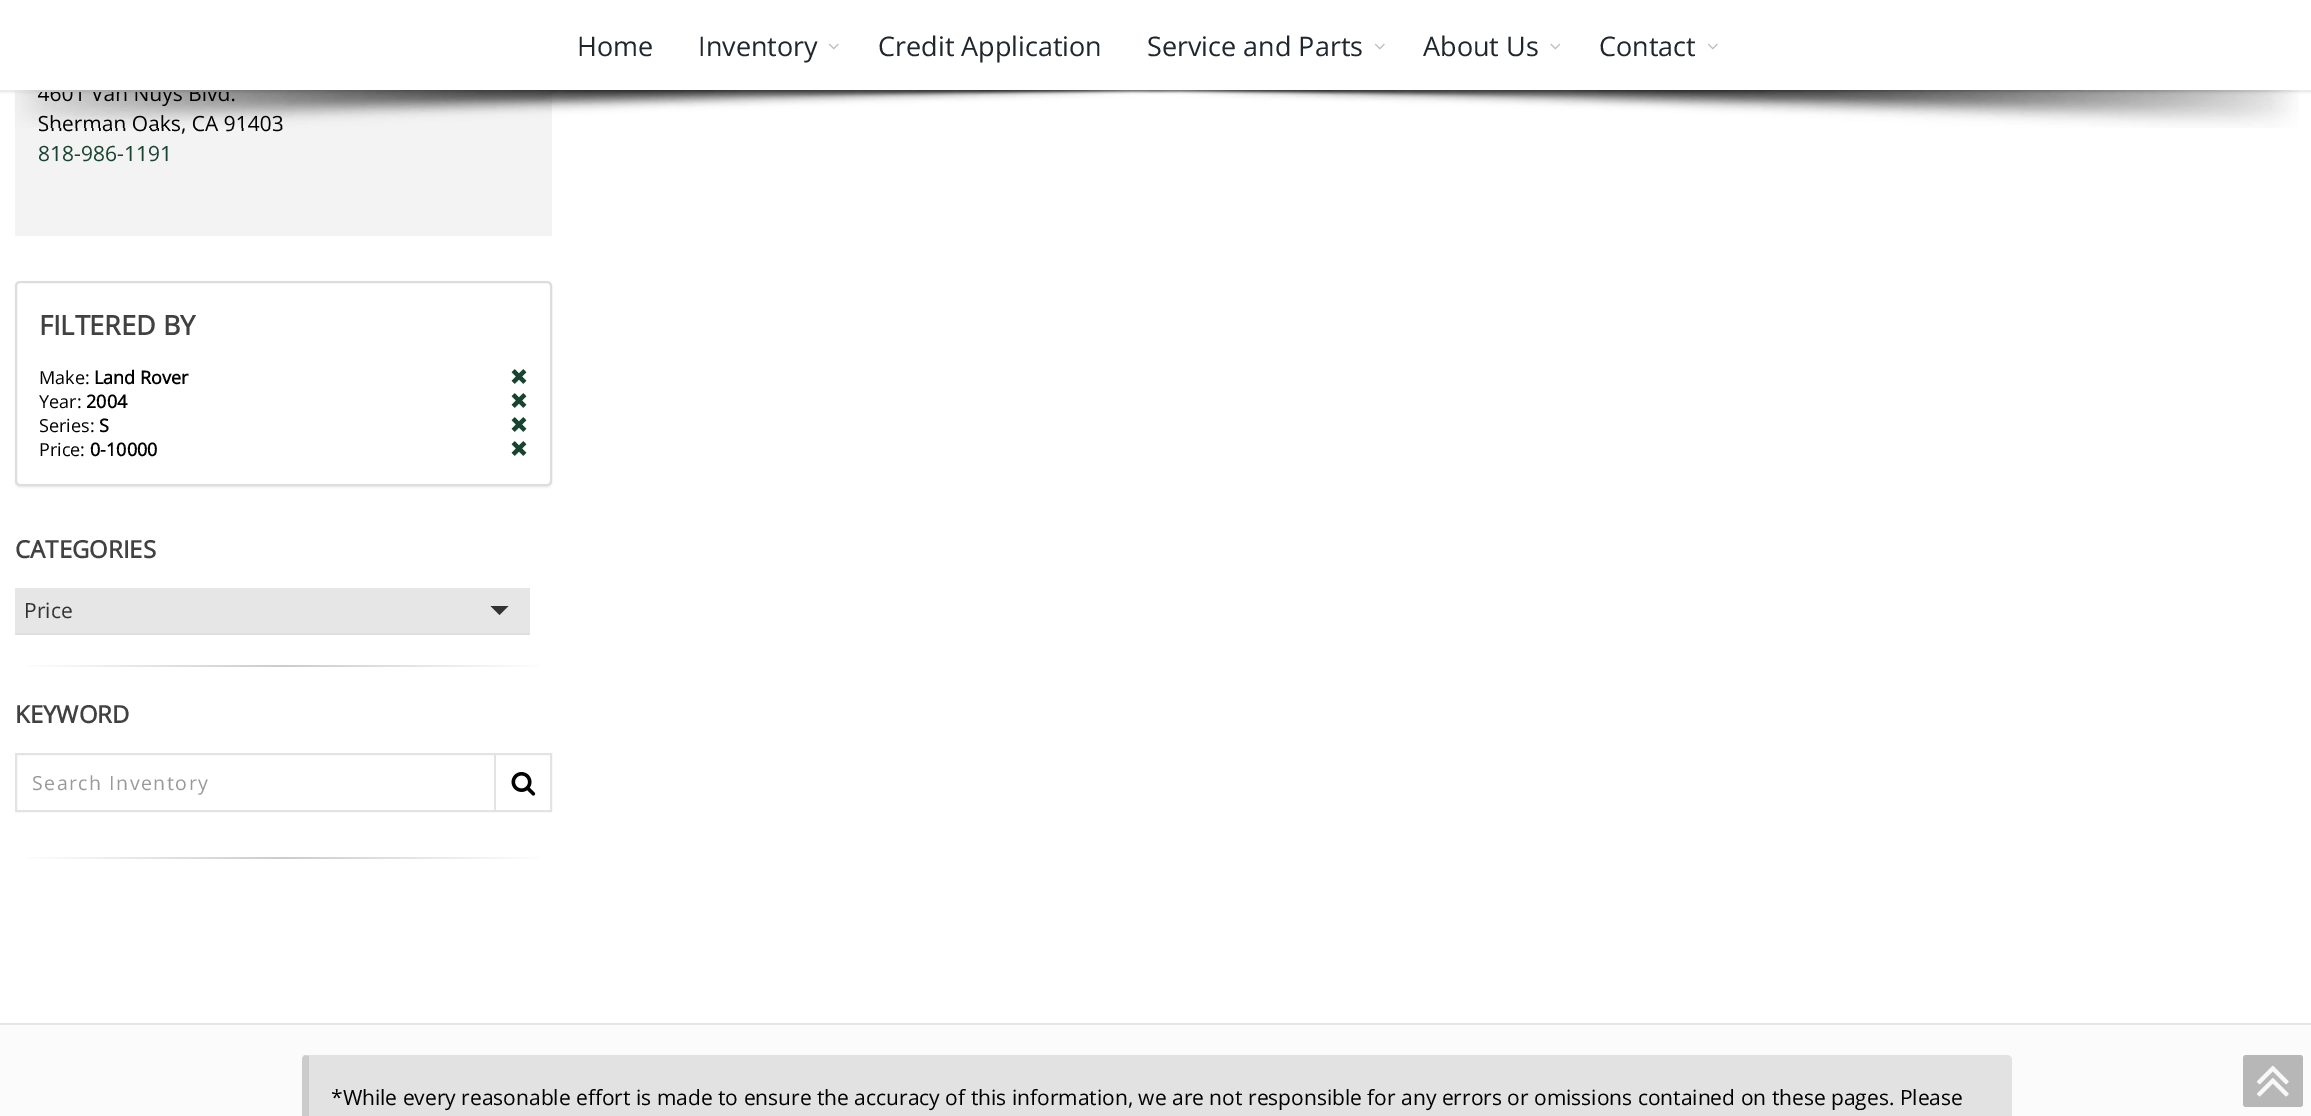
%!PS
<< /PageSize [2311 1116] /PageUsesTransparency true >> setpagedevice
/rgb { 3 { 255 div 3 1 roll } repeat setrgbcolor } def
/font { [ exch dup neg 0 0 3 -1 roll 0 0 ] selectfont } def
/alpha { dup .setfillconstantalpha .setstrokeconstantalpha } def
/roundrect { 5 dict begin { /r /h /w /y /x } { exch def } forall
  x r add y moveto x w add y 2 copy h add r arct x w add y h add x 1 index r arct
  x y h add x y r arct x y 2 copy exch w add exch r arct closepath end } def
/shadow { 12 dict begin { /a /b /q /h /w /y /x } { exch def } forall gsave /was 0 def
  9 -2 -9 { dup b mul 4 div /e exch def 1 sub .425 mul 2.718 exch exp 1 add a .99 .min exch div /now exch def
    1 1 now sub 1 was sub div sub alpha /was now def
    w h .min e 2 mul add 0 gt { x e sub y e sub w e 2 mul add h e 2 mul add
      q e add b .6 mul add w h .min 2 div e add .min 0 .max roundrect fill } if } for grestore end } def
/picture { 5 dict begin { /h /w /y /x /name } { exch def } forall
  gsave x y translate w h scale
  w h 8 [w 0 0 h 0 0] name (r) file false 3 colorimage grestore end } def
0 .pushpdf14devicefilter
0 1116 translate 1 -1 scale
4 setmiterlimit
255 255 255 rgb
0 0 2311 1116 rectfill
243 243 243 rgb
15 92 537 144 rectfill
0 0 0 rgb
0 0 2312 92 0 1.5 0.1 shadow
230 230 230 rgb
0 1023 2311 2 rectfill
0 0 0 rgb
15 282 537 206 5 1 0.05 shadow
255 255 255 rgb
16 282 535 203 4 roundrect gsave fill grestore
221 221 221 rgb
2 setlinewidth
stroke
(img/4.rgb) 511 369 16 15 picture
(img/4.rgb) 511 393 16 15 picture
(img/4.rgb) 511 417 16 15 picture
(img/4.rgb) 511 441 16 15 picture
230 230 230 rgb
15 588 515 45 rectfill
223 223 223 rgb
15 633 515 2 rectfill
51 51 51 rgb
490.5 606 moveto 508.5 606 lineto 499.5 615 lineto closepath fill
gsave 28 665 moveto 539 665 lineto 539 667 lineto 28 667 lineto closepath clip newpath
<< /ShadingType 2 /ColorSpace /DeviceRGB /Coords [15 665 552 665] /Extend [true true] /Function << /FunctionType 3 /Domain [0 1] /Functions [<< /FunctionType 2 /Domain [0 1] /C0 [1 1 1] /C1 [0.8 0.8 0.8] /N 1 >> << /FunctionType 2 /Domain [0 1] /C0 [0.8 0.8 0.8] /C1 [1 1 1] /N 1 >>] /Bounds [0.5] /Encode [0 1 0 1] >> >> shfill grestore
227 227 227 rgb
16 754 535 57 rectstroke
494 753 2 59 rectfill
(img/5.rgb) 511 772 25 24 picture
gsave 28 857 moveto 539 857 lineto 539 859 lineto 28 859 lineto closepath clip newpath
<< /ShadingType 2 /ColorSpace /DeviceRGB /Coords [15 857 552 857] /Extend [true true] /Function << /FunctionType 3 /Domain [0 1] /Functions [<< /FunctionType 2 /Domain [0 1] /C0 [1 1 1] /C1 [0.8 0.8 0.8] /N 1 >> << /FunctionType 2 /Domain [0 1] /C0 [0.8 0.8 0.8] /C1 [1 1 1] /N 1 >>] /Bounds [0.5] /Encode [0 1 0 1] >> >> shfill grestore
251 251 251 rgb
0 1025 2311 91 rectfill
226 226 226 rgb
302 1055 1710 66 5 roundrect fill
0.1 alpha
0 0 0 rgb
309 1056 moveto 309 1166 lineto 304 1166 lineto 303 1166 302 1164 302 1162 curveto 302 1059 lineto 302 1058 303 1056 304 1055 curveto closepath fill
1 alpha
183 183 183 rgb
2243 1055 60 52 3 roundrect fill
(img/6.rgb) 2257 1065 32 32 picture
/OpenSans-Regular 21 font
0 0 0 rgb
38 101 moveto (4601 Van Nuys Blvd.) show
255 255 255 rgb
0 0 2311 90 rectfill
(img/1.rgb) 1707 43 11 7 picture
/OpenSans-Regular 27 font
31 38 45 rgb
1599 56 moveto (Contact) show
(img/2.rgb) 1550 43 11 7 picture
1423 56 moveto (About Us) show
(img/1.rgb) 1374 43 11 7 picture
1147 56 moveto (Service and Parts) show
878 56 moveto (Credit Application) show
(img/1.rgb) 828 43 11 7 picture
698 56 moveto (Inventory) show
577 56 moveto (Home) show
235 235 235 rgb
0 90 2311 2 rectfill
/OpenSans-Regular 21 font
0 0 0 rgb
38 131 moveto (Sherman Oaks, CA 91403) show
(img/3.rgb) 14 90 2285 38 picture
23 67 49 rgb
38 161 moveto (818-986-1191) show
/OpenSans-Bold 27 font
65 65 65 rgb
39 335 moveto (FILTERED BY) show
/OpenSans-Regular 18 font
0 0 0 rgb
39 384 moveto (Make:) show
/OpenSans-Bold 18 font
94 384 moveto (Land Rover) show
/OpenSans-Regular 18 font
39 408 moveto (Year:) show
/OpenSans-Bold 18 font
86 408 moveto (2004) show
/OpenSans-Regular 18 font
39 432 moveto (Series:) show
/OpenSans-Bold 18 font
99 432 moveto (S) show
/OpenSans-Regular 18 font
39 456 moveto (Price:) show
/OpenSans-Bold 18 font
90 456 moveto (0-10000) show
/OpenSans-Bold 24 font
65 65 65 rgb
15 558 moveto (CATEGORIES) show
/OpenSans-Regular 21 font
51 51 51 rgb
24 618 moveto (Price) show
/OpenSans-Bold 24 font
65 65 65 rgb
15 723 moveto (KEYWORD) show
/OpenSans-Regular 19.5 font
153 153 153 rgb
32 790 moveto 1.5 0 (Search Inventory) ashow
/OpenSans-Regular 21 font
0 0 0 rgb
331 1105 moveto (*While every reasonable effort is made to ensure the accuracy of this information, we are not responsible for any errors or omissions contained on these pages. Please) show
.poppdf14devicefilter showpage
